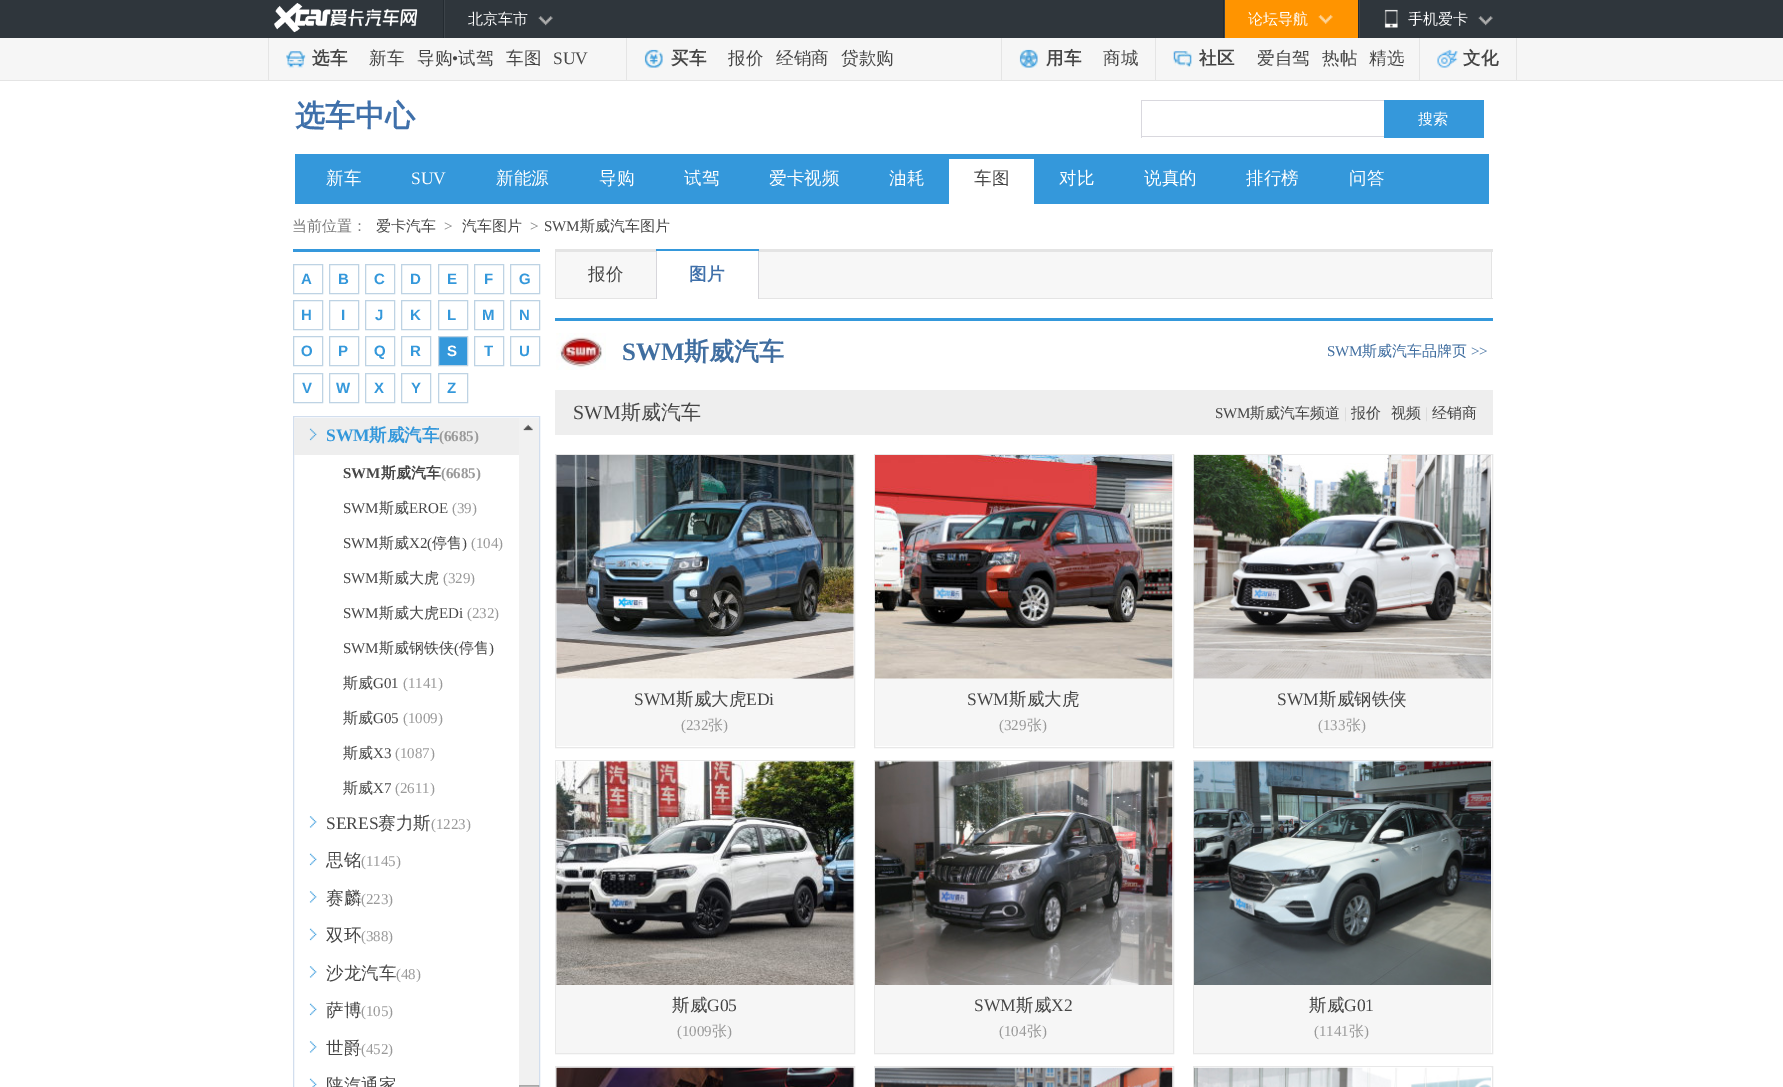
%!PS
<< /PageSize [1783 1087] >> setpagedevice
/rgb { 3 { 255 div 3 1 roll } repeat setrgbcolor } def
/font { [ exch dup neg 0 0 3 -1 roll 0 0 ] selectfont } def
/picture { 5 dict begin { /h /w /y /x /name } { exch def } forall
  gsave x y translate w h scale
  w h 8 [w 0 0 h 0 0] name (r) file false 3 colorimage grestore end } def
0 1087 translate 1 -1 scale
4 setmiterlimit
255 255 255 rgb
0 0 1783 1087 rectfill
47 54 60 rgb
0 0 1783 38 rectfill
(img/1.rgb) 274 3 144 30 picture
36 43 49 rgb
443 0 1 38 rectfill
(img/2.rgb) 538 16 15 10 picture
[
  [444 0 1 38 60 67 73]
  [1223 0 1 38 36 43 49]
  [1225 0 133 38 255 148 0]
] { aload pop rgb rectfill } forall
(img/3.rgb) 1318 14 15 10 picture
60 67 73 rgb
1224 0 1 38 rectfill
36 43 49 rgb
1358 0 1 38 rectfill
(img/2.rgb) 1478 16 15 10 picture
60 67 73 rgb
1359 0 1 38 rectfill
(img/4.rgb) 1384 9 14 19 picture
[
  [0 38 1783 42 246 246 246]
  [0 80 1783 1 228 228 228]
  [268 38 1 42 229 229 229]
] { aload pop rgb rectfill } forall
(img/5.rgb) 286 51 20 17 picture
626 38 1 42 rectfill
(img/6.rgb) 644 49 19 19 picture
1001 38 1 42 rectfill
(img/7.rgb) 1019 49 19 19 picture
1155 38 1 42 rectfill
(img/8.rgb) 1173 51 19 16 picture
1419 38 1 42 rectfill
1516 38 1 42 rectfill
(img/9.rgb) 1437 49 21 19 picture
[
  [1141 100 243 1 217 216 222]
  [1141 136 243 1 217 216 222]
  [1141 100 1 38 217 216 222]
  [1384 100 100 38 53 152 219]
  [295 154 1194 50 52 152 219]
  [949 159 85 45 255 255 255]
  [293 249 247 3 53 152 220]
] { aload pop rgb rectfill } forall
190 211 228 rgb
293.5 264.5 29 29 rectstroke
329.5 264.5 29 29 rectstroke
365.5 264.5 29 29 rectstroke
401.5 264.5 29 29 rectstroke
438.5 264.5 29 29 rectstroke
474.5 264.5 29 29 rectstroke
510.5 264.5 29 29 rectstroke
293.5 300.5 29 29 rectstroke
329.5 300.5 29 29 rectstroke
365.5 300.5 29 29 rectstroke
401.5 300.5 29 29 rectstroke
438.5 300.5 29 29 rectstroke
474.5 300.5 29 29 rectstroke
510.5 300.5 29 29 rectstroke
293.5 336.5 29 29 rectstroke
329.5 336.5 29 29 rectstroke
365.5 336.5 29 29 rectstroke
401.5 336.5 29 29 rectstroke
52 152 219 rgb
438.5 336.5 moveto 467.5 336.5 lineto 467.5 365.5 lineto 438.5 365.5 lineto closepath gsave fill grestore
190 211 228 rgb
stroke
474.5 336.5 29 29 rectstroke
510.5 336.5 29 29 rectstroke
293.5 373.5 29 29 rectstroke
329.5 373.5 29 29 rectstroke
365.5 373.5 29 29 rectstroke
401.5 373.5 29 29 rectstroke
438.5 373.5 29 29 rectstroke
210 222 238 rgb
293.5 416.5 246 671 rectstroke
238 238 238 rgb
294 418 225 37 rectfill
(img/10.rgb) 309 428 8 13 picture
(img/11.rgb) 309 816 8 12 picture
(img/12.rgb) 309 853 8 13 picture
(img/11.rgb) 309 891 8 12 picture
(img/12.rgb) 309 928 8 13 picture
(img/11.rgb) 309 966 8 12 picture
(img/12.rgb) 309 1003 8 13 picture
(img/11.rgb) 309 1041 8 12 picture
(img/13.rgb) 309 1078 8 9 picture
241 241 241 rgb
519 418 20 667 rectfill
(img/14.rgb) 523 424 10 7 picture
188 188 188 rgb
519.5 1085.5 moveto 538.5 1085.5 lineto 538.5 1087.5 lineto 519.5 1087.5 lineto closepath gsave fill grestore
168 168 168 rgb
stroke
[
  [556 252 935 46 247 247 247]
  [555 249 938 3 228 228 228]
  [1491 249 1 50 228 228 228]
  [555 298 938 1 228 228 228]
  [555 249 1 50 228 228 228]
  [656 249 103 2 53 152 219]
  [657 251 101 48 255 255 255]
  [758 251 1 48 215 214 219]
  [656 251 1 48 215 214 219]
  [555 318 938 3 52 152 219]
] { aload pop rgb rectfill } forall
(img/15.rgb) 556 333 50 37 picture
238 238 238 rgb
555 390 938 45 rectfill
232 232 232 rgb
555.5 454.5 299 293 rectstroke
(img/16.rgb) 556 455 298 224 picture
246 246 246 rgb
556 679 298 67 rectfill
232 232 232 rgb
874.5 454.5 299 293 rectstroke
(img/17.rgb) 875 455 298 224 picture
246 246 246 rgb
875 679 298 67 rectfill
232 232 232 rgb
1193.5 454.5 299 293 rectstroke
(img/18.rgb) 1193 455 299 224 picture
246 246 246 rgb
1194 679 297 67 rectfill
232 232 232 rgb
555.5 760.5 299 293 rectstroke
(img/19.rgb) 556 761 298 224 picture
246 246 246 rgb
556 985 298 68 rectfill
232 232 232 rgb
874.5 760.5 299 293 rectstroke
(img/20.rgb) 875 761 298 224 picture
246 246 246 rgb
875 985 298 68 rectfill
232 232 232 rgb
1193.5 760.5 299 293 rectstroke
(img/21.rgb) 1193 761 299 224 picture
246 246 246 rgb
1194 985 297 68 rectfill
232 232 232 rgb
555.5 1066.5 299 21 rectstroke
(img/22.rgb) 556 1067 298 20 picture
874.5 1066.5 299 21 rectstroke
(img/23.rgb) 875 1067 298 20 picture
1193.5 1066.5 299 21 rectstroke
(img/24.rgb) 1193 1067 298 20 picture
/WenQuanYiZenHei-Medium 15 font
255 255 255 rgb
[
  [(北京车市) 468 24]
  [(论坛导航) 1248 24]
  [(手机爱卡) 1408 24]
] { aload pop moveto show } forall
/WenQuanYiZenHei-Bold 17.5 font
70 70 70 rgb
312 64 moveto (选车) show
/WenQuanYiZenHei-Medium 17.5 font
369 64 moveto (新车) show
417 64 moveto (导购) show
/LiberationSerif-Regular 17.5 font
452 64 moveto (•) show
/WenQuanYiZenHei-Medium 17.5 font
458 64 moveto (试驾) show
506 64 moveto (车图) show
/LiberationSerif-Regular 17.5 font
553 64 moveto (SUV) show
/WenQuanYiZenHei-Bold 17.5 font
671 64 moveto (买车) show
/WenQuanYiZenHei-Medium 17.5 font
[
  [(报价) 728 64]
  [(经销商) 776 64]
  [(贷款购) 841 64]
] { aload pop moveto show } forall
/WenQuanYiZenHei-Bold 17.5 font
1046 64 moveto (用车) show
/WenQuanYiZenHei-Medium 17.5 font
1103 64 moveto (商城) show
/WenQuanYiZenHei-Bold 17.5 font
1199 64 moveto (社区) show
/WenQuanYiZenHei-Medium 17.5 font
[
  [(爱自驾) 1257 64]
  [(热帖) 1322 64]
  [(精选) 1369 64]
] { aload pop moveto show } forall
/WenQuanYiZenHei-Bold 17.5 font
1463 64 moveto (文化) show
/WenQuanYiZenHei-Bold 30 font
63 112 170 rgb
295 126 moveto (选车中心) show
/WenQuanYiZenHei-Medium 15 font
255 255 255 rgb
1418 124 moveto (搜索) show
/WenQuanYiZenHei-Medium 17.5 font
326 184 moveto (新车) show
/LiberationSerif-Regular 17.5 font
411 184 moveto (SUV) show
/WenQuanYiZenHei-Medium 17.5 font
[
  [(新能源) 496 184]
  [(导购) 599 184]
  [(试驾) 684 184]
  [(爱卡视频) 769 184]
  [(油耗) 889 184]
] { aload pop moveto show } forall
70 70 70 rgb
974 184 moveto (车图) show
255 255 255 rgb
[
  [(对比) 1059 184]
  [(说真的) 1144 184]
  [(排行榜) 1246 184]
  [(问答) 1349 184]
] { aload pop moveto show } forall
/WenQuanYiZenHei-Medium 15 font
119 119 119 rgb
292 231 moveto (当前位置：) show
70 70 70 rgb
376 231 moveto (爱卡汽车) show
/LiberationSerif-Regular 15 font
119 119 119 rgb
444 231 moveto (>) show
/WenQuanYiZenHei-Medium 15 font
70 70 70 rgb
462 231 moveto (汽车图片) show
/LiberationSerif-Regular 15 font
119 119 119 rgb
530 231 moveto (>) show
70 70 70 rgb
544 231 moveto (SWM) show
/WenQuanYiZenHei-Medium 15 font
580 231 moveto (斯威汽车图片) show
/LiberationSans-Bold 15 font
52 152 219 rgb
[
  [(A) 301 284]
  [(B) 338 284]
  [(C) 374 284]
  [(D) 410 284]
  [(E) 447 284]
  [(F) 484 284]
  [(G) 519 284]
  [(H) 301 320]
  [(I) 341 320]
  [(J) 375 320]
  [(K) 410 320]
  [(L) 447 320]
  [(M) 482 320]
  [(N) 519 320]
  [(O) 301 356]
  [(P) 338 356]
  [(Q) 374 356]
  [(R) 410 356]
] { aload pop moveto show } forall
255 255 255 rgb
447 356 moveto (S) show
52 152 219 rgb
[
  [(T) 484 356]
  [(U) 519 356]
  [(V) 302 393]
  [(W) 336 393]
  [(X) 374 393]
  [(Y) 411 393]
  [(Z) 447 393]
] { aload pop moveto show } forall
/LiberationSerif-Bold 17.5 font
326 441 moveto (SWM) show
/WenQuanYiZenHei-Bold 17.5 font
369 441 moveto (斯威汽车) show
/LiberationSerif-Bold 15 font
153 153 153 rgb
439 441 moveto (\(6685\)) show
70 70 70 rgb
343 478 moveto (SWM) show
/WenQuanYiZenHei-Bold 15 font
381 478 moveto (斯威汽车) show
/LiberationSerif-Bold 15 font
153 153 153 rgb
441 478 moveto (\(6685\)) show
/LiberationSerif-Regular 15 font
70 70 70 rgb
343 513 moveto (SWM) show
/WenQuanYiZenHei-Medium 15 font
379 513 moveto (斯威) show
/LiberationSerif-Regular 15 font
409 513 moveto (EROE) show
153 153 153 rgb
452 513 moveto (\(39\)) show
70 70 70 rgb
343 548 moveto (SWM) show
/WenQuanYiZenHei-Medium 15 font
379 548 moveto (斯威) show
/LiberationSerif-Regular 15 font
409 548 moveto (X2\() show
/WenQuanYiZenHei-Medium 15 font
432 548 moveto (停售) show
/LiberationSerif-Regular 15 font
462 548 moveto (\)) show
153 153 153 rgb
471 548 moveto (\(104\)) show
70 70 70 rgb
343 583 moveto (SWM) show
/WenQuanYiZenHei-Medium 15 font
379 583 moveto (斯威大虎) show
/LiberationSerif-Regular 15 font
153 153 153 rgb
443 583 moveto (\(329\)) show
70 70 70 rgb
343 618 moveto (SWM) show
/WenQuanYiZenHei-Medium 15 font
379 618 moveto (斯威大虎) show
/LiberationSerif-Regular 15 font
439 618 moveto (EDi) show
153 153 153 rgb
467 618 moveto (\(232\)) show
70 70 70 rgb
343 653 moveto (SWM) show
/WenQuanYiZenHei-Medium 15 font
379 653 moveto (斯威钢铁侠) show
/LiberationSerif-Regular 15 font
454 653 moveto (\() show
/WenQuanYiZenHei-Medium 15 font
459 653 moveto (停售) show
/LiberationSerif-Regular 15 font
489 653 moveto (\)) show
/WenQuanYiZenHei-Medium 15 font
343 688 moveto (斯威) show
/LiberationSerif-Regular 15 font
373 688 moveto (G01) show
153 153 153 rgb
403 688 moveto (\(1141\)) show
/WenQuanYiZenHei-Medium 15 font
70 70 70 rgb
343 723 moveto (斯威) show
/LiberationSerif-Regular 15 font
373 723 moveto (G05) show
153 153 153 rgb
403 723 moveto (\(1009\)) show
/WenQuanYiZenHei-Medium 15 font
70 70 70 rgb
343 758 moveto (斯威) show
/LiberationSerif-Regular 15 font
373 758 moveto (X3) show
153 153 153 rgb
395 758 moveto (\(1087\)) show
/WenQuanYiZenHei-Medium 15 font
70 70 70 rgb
343 793 moveto (斯威) show
/LiberationSerif-Regular 15 font
373 793 moveto (X7) show
153 153 153 rgb
395 793 moveto (\(2611\)) show
/LiberationSerif-Regular 17.5 font
70 70 70 rgb
326 829 moveto (SERES) show
/WenQuanYiZenHei-Medium 17.5 font
378 829 moveto (赛力斯) show
/LiberationSerif-Regular 15 font
153 153 153 rgb
431 829 moveto (\(1223\)) show
/WenQuanYiZenHei-Medium 17.5 font
70 70 70 rgb
326 866 moveto (思铭) show
/LiberationSerif-Regular 15 font
153 153 153 rgb
361 866 moveto (\(1145\)) show
/WenQuanYiZenHei-Medium 17.5 font
70 70 70 rgb
326 904 moveto (赛麟) show
/LiberationSerif-Regular 15 font
153 153 153 rgb
361 904 moveto (\(223\)) show
/WenQuanYiZenHei-Medium 17.5 font
70 70 70 rgb
326 941 moveto (双环) show
/LiberationSerif-Regular 15 font
153 153 153 rgb
361 941 moveto (\(388\)) show
/WenQuanYiZenHei-Medium 17.5 font
70 70 70 rgb
326 979 moveto (沙龙汽车) show
/LiberationSerif-Regular 15 font
153 153 153 rgb
396 979 moveto (\(48\)) show
/WenQuanYiZenHei-Medium 17.5 font
70 70 70 rgb
326 1016 moveto (萨博) show
/LiberationSerif-Regular 15 font
153 153 153 rgb
361 1016 moveto (\(105\)) show
/WenQuanYiZenHei-Medium 17.5 font
70 70 70 rgb
326 1054 moveto (世爵) show
/LiberationSerif-Regular 15 font
153 153 153 rgb
361 1054 moveto (\(452\)) show
/WenQuanYiZenHei-Medium 17.5 font
70 70 70 rgb
326 1091 moveto (陕汽通家) show
588 280 moveto (报价) show
/WenQuanYiZenHei-Bold 17.5 font
63 112 170 rgb
689 280 moveto (图片) show
/LiberationSerif-Bold 25 font
64 110 160 rgb
622 360 moveto (SWM) show
/WenQuanYiZenHei-Bold 25 font
684 360 moveto (斯威汽车) show
/LiberationSerif-Regular 15 font
1327 356 moveto (SWM) show
/WenQuanYiZenHei-Medium 15 font
1362 356 moveto (斯威汽车品牌页) show
/LiberationSerif-Regular 15 font
1471 356 moveto (>>) show
/LiberationSerif-Regular 20 font
70 70 70 rgb
573 419 moveto (SWM) show
/WenQuanYiZenHei-Medium 20 font
621 419 moveto (斯威汽车) show
/LiberationSerif-Regular 15 font
1215 418 moveto (SWM) show
/WenQuanYiZenHei-Medium 15 font
1250 418 moveto (斯威汽车频道) show
/LiberationSerif-Regular 15 font
215 215 215 rgb
1344 418 moveto (|) show
/WenQuanYiZenHei-Medium 15 font
70 70 70 rgb
1351 418 moveto (报价) show
1391 418 moveto (视频) show
/LiberationSerif-Regular 15 font
215 215 215 rgb
1425 418 moveto (|) show
/WenQuanYiZenHei-Medium 15 font
70 70 70 rgb
1432 418 moveto (经销商) show
/LiberationSerif-Regular 17.5 font
634 705 moveto (SWM) show
/WenQuanYiZenHei-Medium 17.5 font
676 705 moveto (斯威大虎) show
/LiberationSerif-Regular 17.5 font
746 705 moveto (EDi) show
/LiberationSerif-Regular 15 font
153 153 153 rgb
681 730 moveto (\(232) show
/WenQuanYiZenHei-Medium 15 font
708 730 moveto (张) show
/LiberationSerif-Regular 15 font
723 730 moveto (\)) show
/LiberationSerif-Regular 17.5 font
70 70 70 rgb
967 705 moveto (SWM) show
/WenQuanYiZenHei-Medium 17.5 font
1009 705 moveto (斯威大虎) show
/LiberationSerif-Regular 15 font
153 153 153 rgb
999 730 moveto (\(329) show
/WenQuanYiZenHei-Medium 15 font
1027 730 moveto (张) show
/LiberationSerif-Regular 15 font
1042 730 moveto (\)) show
/LiberationSerif-Regular 17.5 font
70 70 70 rgb
1277 705 moveto (SWM) show
/WenQuanYiZenHei-Medium 17.5 font
1319 705 moveto (斯威钢铁侠) show
/LiberationSerif-Regular 15 font
153 153 153 rgb
1318 730 moveto (\(133) show
/WenQuanYiZenHei-Medium 15 font
1346 730 moveto (张) show
/LiberationSerif-Regular 15 font
1361 730 moveto (\)) show
/WenQuanYiZenHei-Medium 17.5 font
70 70 70 rgb
672 1011 moveto (斯威) show
/LiberationSerif-Regular 17.5 font
707 1011 moveto (G05) show
/LiberationSerif-Regular 15 font
153 153 153 rgb
677 1036 moveto (\(1009) show
/WenQuanYiZenHei-Medium 15 font
712 1036 moveto (张) show
/LiberationSerif-Regular 15 font
727 1036 moveto (\)) show
/LiberationSerif-Regular 17.5 font
70 70 70 rgb
974 1011 moveto (SWM) show
/WenQuanYiZenHei-Medium 17.5 font
1016 1011 moveto (斯威) show
/LiberationSerif-Regular 17.5 font
1051 1011 moveto (X2) show
/LiberationSerif-Regular 15 font
153 153 153 rgb
999 1036 moveto (\(104) show
/WenQuanYiZenHei-Medium 15 font
1027 1036 moveto (张) show
/LiberationSerif-Regular 15 font
1042 1036 moveto (\)) show
/WenQuanYiZenHei-Medium 17.5 font
70 70 70 rgb
1309 1011 moveto (斯威) show
/LiberationSerif-Regular 17.5 font
1344 1011 moveto (G01) show
/LiberationSerif-Regular 15 font
153 153 153 rgb
1314 1036 moveto (\(1141) show
/WenQuanYiZenHei-Medium 15 font
1349 1036 moveto (张) show
/LiberationSerif-Regular 15 font
1364 1036 moveto (\)) show
showpage
